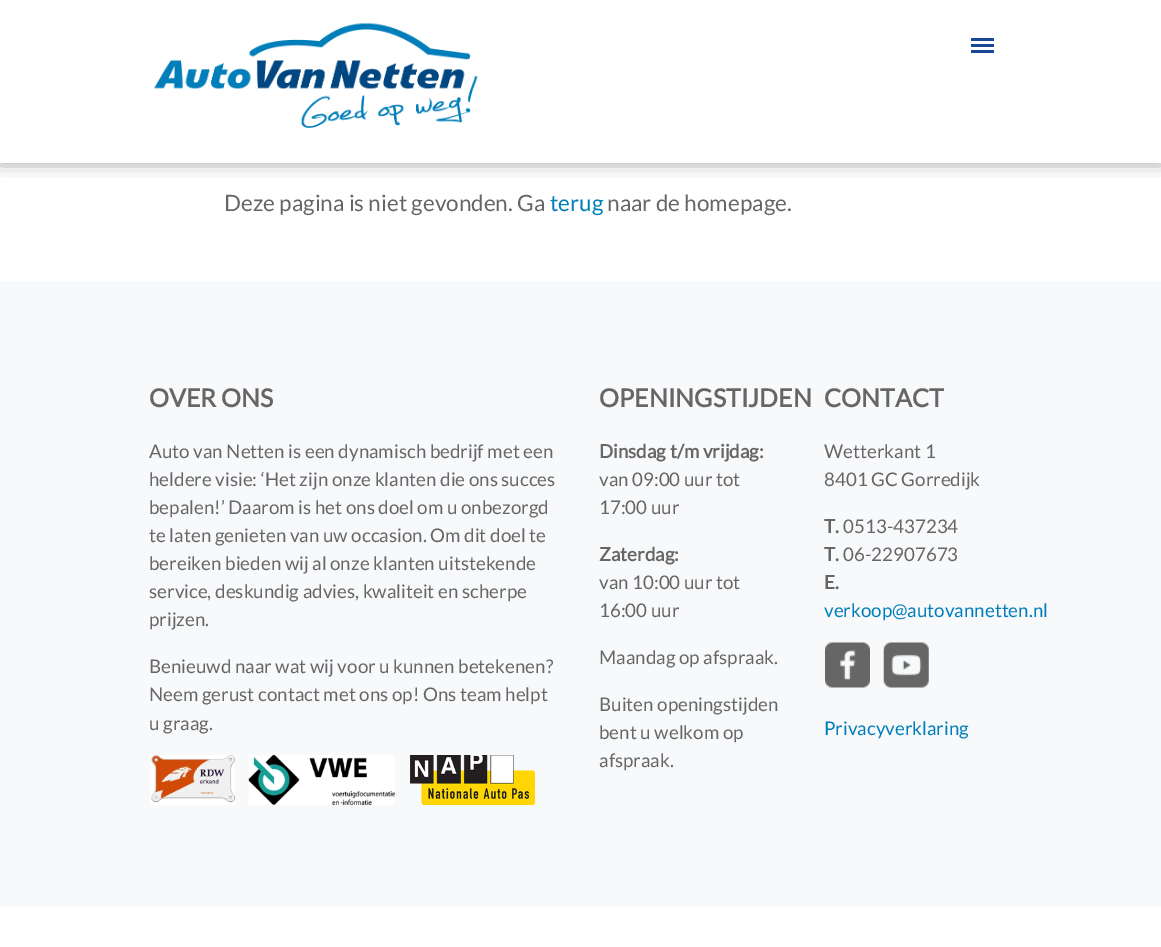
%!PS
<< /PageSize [1161 947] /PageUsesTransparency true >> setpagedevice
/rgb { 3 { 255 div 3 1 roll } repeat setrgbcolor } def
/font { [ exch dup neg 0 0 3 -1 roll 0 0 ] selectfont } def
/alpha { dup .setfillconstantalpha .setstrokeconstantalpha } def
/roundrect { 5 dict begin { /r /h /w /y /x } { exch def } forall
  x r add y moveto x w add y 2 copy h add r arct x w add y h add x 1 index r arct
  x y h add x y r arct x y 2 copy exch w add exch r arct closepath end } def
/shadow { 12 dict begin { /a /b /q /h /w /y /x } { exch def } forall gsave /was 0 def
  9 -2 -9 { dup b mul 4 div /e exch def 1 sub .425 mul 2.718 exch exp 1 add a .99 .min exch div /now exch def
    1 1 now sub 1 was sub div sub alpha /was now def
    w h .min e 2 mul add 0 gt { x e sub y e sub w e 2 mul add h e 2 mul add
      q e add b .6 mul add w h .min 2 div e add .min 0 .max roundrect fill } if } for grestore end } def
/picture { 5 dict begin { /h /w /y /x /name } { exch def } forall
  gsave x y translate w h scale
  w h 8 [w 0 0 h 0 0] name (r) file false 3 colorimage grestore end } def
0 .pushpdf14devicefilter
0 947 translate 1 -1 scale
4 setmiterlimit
255 255 255 rgb
0 0 1161 947 rectfill
0 0 0 rgb
0 -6 1161 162 0 9.5 1 shadow
255 255 255 rgb
0 0 1161 163 rectfill
(img/1.rgb) 154 23 324 105 picture
[
  [971 44 23 3 26 71 150]
  [971 38 23 3 26 71 150]
  [971 50 23 3 26 71 150]
  [0 281 1161 625 248 249 251]
] { aload pop rgb rectfill } forall
(img/2.rgb) 150 755 85 50 picture
(img/3.rgb) 248 755 147 50 picture
(img/4.rgb) 410 755 125 50 picture
(img/5.rgb) 825 642 45 46 picture
(img/6.rgb) 883 642 46 46 picture
/Lato-Regular 22.5 font
102 102 102 rgb
224 211 moveto (Deze pagina is niet gevonden. Ga) show
0 126 186 rgb
550 211 moveto (terug) show
102 102 102 rgb
607 211 moveto (naar de homepage.) show
/Lato-Bold 25 font
149 407 moveto (OVER ONS) show
/Lato-Regular 18.75 font
[
  [(Auto van Netten is een dynamisch bedrijf met een) 149 458]
  [(heldere visie: ‘Het zijn onze klanten die ons succes) 149 486]
  [(bepalen!’ Daarom is het ons doel om u onbezorgd) 149 514]
  [(te laten genieten van uw occasion. Om dit doel te) 149 542]
  [(bereiken bieden wij al onze klanten uitstekende) 149 570]
  [(service, deskundig advies, kwaliteit en scherpe) 149 598]
  [(prijzen.) 149 626]
  [(Benieuwd naar wat wij voor u kunnen betekenen?) 149 673]
  [(Neem gerust contact met ons op! Ons team helpt) 149 701]
  [(u graag.) 149 730]
] { aload pop moveto show } forall
/Lato-Bold 25 font
599 407 moveto (OPENINGSTIJDEN) show
/Lato-Bold 18.75 font
599 458 moveto (Dinsdag t/m vrijdag:) show
/Lato-Regular 18.75 font
599 486 moveto (van 09:00 uur tot) show
599 514 moveto (17:00 uur) show
/Lato-Bold 18.75 font
599 561 moveto (Zaterdag:) show
/Lato-Regular 18.75 font
[
  [(van 10:00 uur tot) 599 589]
  [(16:00 uur) 599 617]
  [(Maandag op afspraak.) 599 664]
  [(Buiten openingstijden) 599 711]
  [(bent u welkom op) 599 739]
  [(afspraak.) 599 767]
] { aload pop moveto show } forall
/Lato-Bold 25 font
824 407 moveto (CONTACT) show
/Lato-Regular 18.75 font
824 458 moveto (Wetterkant 1) show
824 486 moveto (8401 GC Gorredijk) show
/Lato-Bold 18.75 font
824 533 moveto (T.) show
/Lato-Regular 18.75 font
843 533 moveto (0513-437234) show
/Lato-Bold 18.75 font
824 561 moveto (T.) show
/Lato-Regular 18.75 font
843 561 moveto (06-22907673) show
/Lato-Bold 18.75 font
824 589 moveto (E.) show
/Lato-Regular 18.75 font
0 126 186 rgb
824 617 moveto (verkoop@autovannetten.nl) show
824 735 moveto (Privacyverklaring) show
.poppdf14devicefilter showpage
